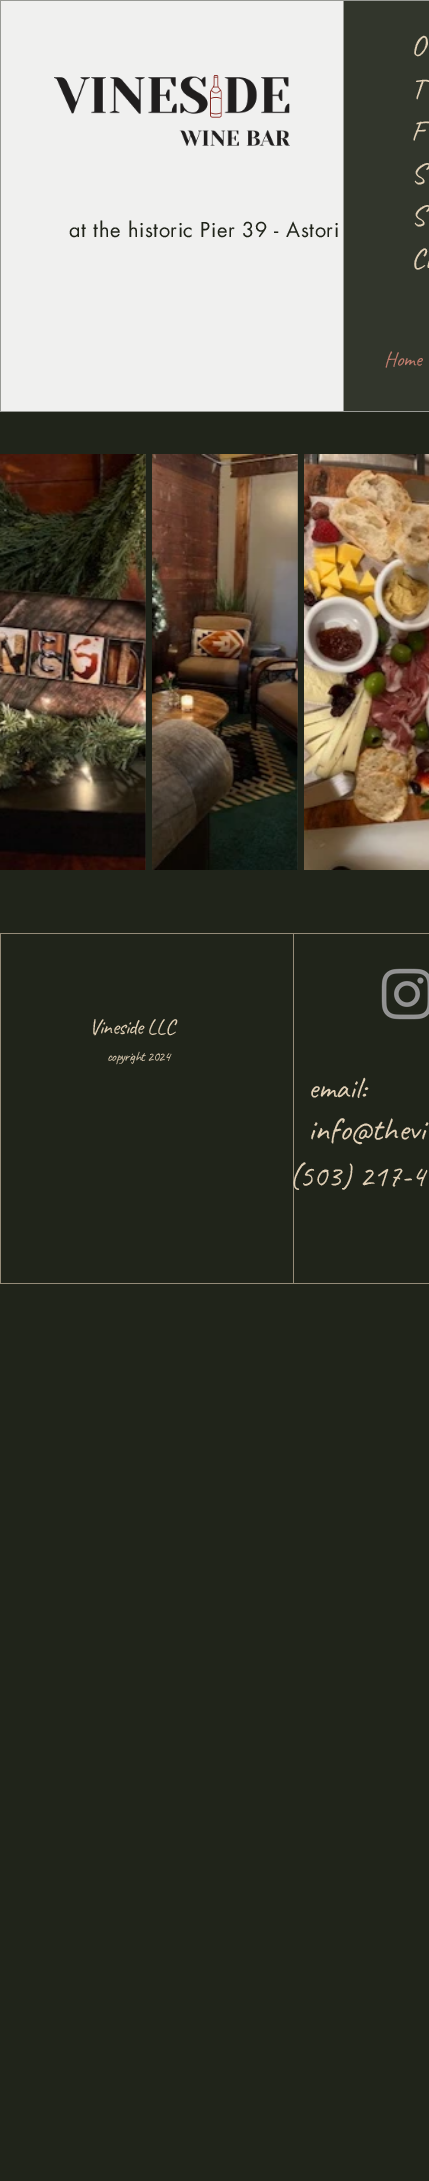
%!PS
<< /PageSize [429 2181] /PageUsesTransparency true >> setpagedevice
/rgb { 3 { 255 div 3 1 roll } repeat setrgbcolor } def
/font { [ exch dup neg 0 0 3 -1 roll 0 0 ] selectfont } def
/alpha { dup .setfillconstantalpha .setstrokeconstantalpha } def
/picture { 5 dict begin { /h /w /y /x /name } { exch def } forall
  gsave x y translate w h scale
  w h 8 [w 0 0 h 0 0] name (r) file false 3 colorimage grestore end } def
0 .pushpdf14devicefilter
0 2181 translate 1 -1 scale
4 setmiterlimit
32 36 26 rgb
0 0 429 2181 rectfill
152 154 149 rgb
0 0 429 412 rectfill
240 240 239 rgb
1 1 342 410 rectfill
(img/1.rgb) 54 75 236 71 picture
0.85 alpha
32 36 26 rgb
344 1 85 410 rectfill
1 alpha
(img/2.rgb) 0 454 146 416 picture
(img/3.rgb) 152 454 146 416 picture
(img/4.rgb) 304 454 125 416 picture
[
  [0 933 429 351 148 139 120]
  [1 934 292 349 32 36 26]
  [294 934 135 349 32 36 26]
] { aload pop rgb rectfill } forall
(img/5.rgb) 381 968 48 52 picture
/futura-Regular 20 font
69 237 moveto 0.6 0 (at the historic Pier 39 - Astori) ashow
/Caveat-Regular 29 font
225 208 182 rgb
411 55 moveto (O) show
411 98 moveto -2 0 32 (T) widthshow
411 140 moveto (F) show
411 183 moveto -1 0 32 (S) widthshow
411 225 moveto (S) show
411 268 moveto (Cl) show
/Caveat-Regular 21 font
193 124 109 rgb
384 366 moveto (Home) show
/Caveat-Regular 22 font
225 208 182 rgb
89 1034 moveto -0.7 0 (Vineside LLC) ashow
/Caveat-Regular 14 font
107 1061 moveto -0.7 0 (copyright 2024) ashow
/Caveat-Regular 31 font
308 1098 moveto (email:) show
/Caveat-Regular 33 font
308 1140 moveto (info@thevi) show
/Caveat-Regular 31 font
289 1186 moveto (\(503\) 217-4) show
.poppdf14devicefilter showpage
